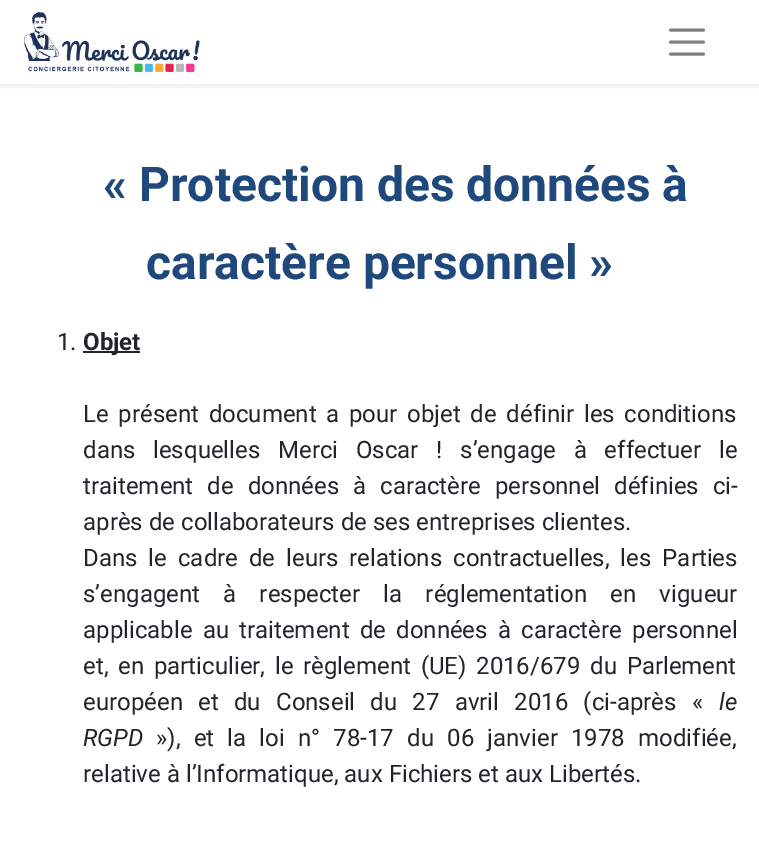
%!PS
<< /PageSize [759 847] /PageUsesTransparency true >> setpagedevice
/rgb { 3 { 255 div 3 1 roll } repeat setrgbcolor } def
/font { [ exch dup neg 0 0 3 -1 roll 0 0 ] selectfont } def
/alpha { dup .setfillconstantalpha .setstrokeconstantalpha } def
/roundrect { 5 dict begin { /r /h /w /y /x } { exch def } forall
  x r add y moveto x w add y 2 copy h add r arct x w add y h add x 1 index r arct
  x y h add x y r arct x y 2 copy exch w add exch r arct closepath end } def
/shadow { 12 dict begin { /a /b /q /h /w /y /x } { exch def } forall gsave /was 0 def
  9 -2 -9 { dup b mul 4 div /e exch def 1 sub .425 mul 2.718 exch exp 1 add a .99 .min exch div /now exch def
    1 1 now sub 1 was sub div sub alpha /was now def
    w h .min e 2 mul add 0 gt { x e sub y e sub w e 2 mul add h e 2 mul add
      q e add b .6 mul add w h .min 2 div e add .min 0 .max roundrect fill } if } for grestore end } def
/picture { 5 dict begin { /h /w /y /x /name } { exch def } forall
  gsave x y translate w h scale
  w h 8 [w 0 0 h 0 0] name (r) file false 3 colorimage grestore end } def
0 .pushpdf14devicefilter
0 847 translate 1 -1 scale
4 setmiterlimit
255 255 255 rgb
0 0 759 847 rectfill
gsave
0 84 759 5 rectclip
0 0 0 rgb
0 3 759 84 0 3 0.07 shadow
grestore
(img/1.rgb) 24 12 176 60 picture
128 128 128 rgb
3 setlinewidth
1 setlinecap
670.5 30 moveto 703.5 30 lineto 670.5 42 moveto 703.5 42 lineto 670.5 54 moveto 703.5 54 lineto stroke
33 37 41 rgb
83 351 57 2 rectfill
/Roboto-Bold 48 font
31 73 125 rgb
103 201 moveto (« Protection des données à) show
146 279 moveto (caractère personnel ») show
/Roboto-Regular 24 font
33 37 41 rgb
57 350 moveto (1.) show
/Roboto-Bold 24 font
83 350 moveto (Objet) show
/Roboto-Regular 24 font
83 422 moveto 3.75 0 32 (Le présent document a pour objet de définir les conditions) widthshow
83 458 moveto 11.75 0 32 (dans lesquelles Merci Oscar ! s’engage à effectuer le) widthshow
83 494 moveto 8 0 32 (traitement de données à caractère personnel définies ci-) widthshow
83 530 moveto (après de collaborateurs de ses entreprises clientes.) show
83 566 moveto 5 0 32 (Dans le cadre de leurs relations contractuelles, les Parties) widthshow
83 602 moveto 17.25 0 32 (s’engagent à respecter la réglementation en vigueur) widthshow
83 638 moveto 4.25 0 32 (applicable au traitement de données à caractère personnel) widthshow
83 674 moveto 3.75 0 32 (et, en particulier, le règlement \(UE\) 2016/679 du Parlement) widthshow
83 710 moveto 9.25 0 32 (européen et du Conseil du 27 avril 2016 \(ci-après «) widthshow
/Roboto-Italic 24 font
719 710 moveto (le) show
83 746 moveto (RGPD) show
/Roboto-Regular 24 font
156 746 moveto 7.25 0 32 (»\), et la loi n° 78-17 du 06 janvier 1978 modifiée,) widthshow
83 782 moveto (relative à l’Informatique, aux Fichiers et aux Libertés.) show
.poppdf14devicefilter showpage
